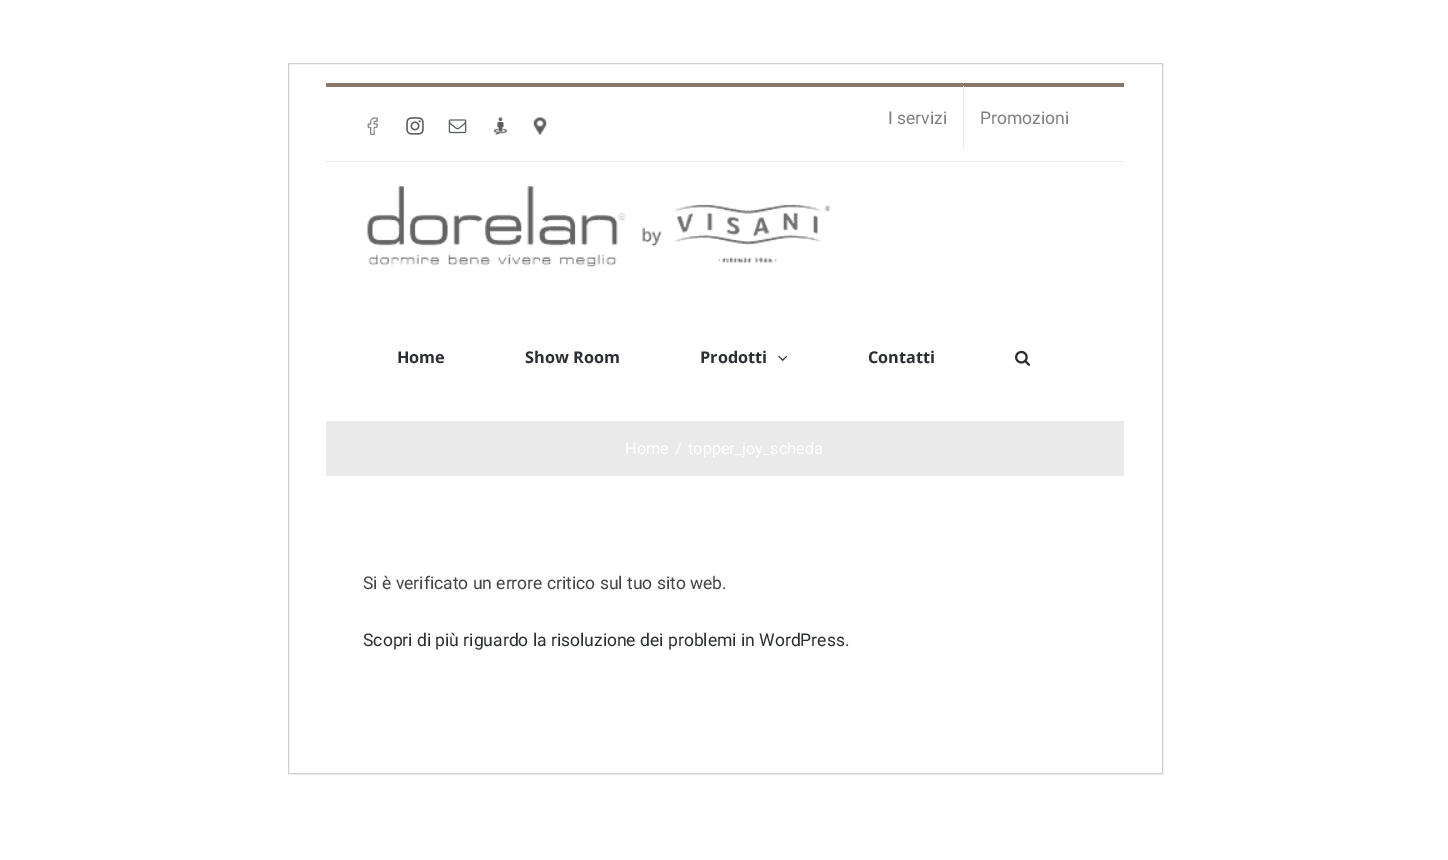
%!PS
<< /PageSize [1448 860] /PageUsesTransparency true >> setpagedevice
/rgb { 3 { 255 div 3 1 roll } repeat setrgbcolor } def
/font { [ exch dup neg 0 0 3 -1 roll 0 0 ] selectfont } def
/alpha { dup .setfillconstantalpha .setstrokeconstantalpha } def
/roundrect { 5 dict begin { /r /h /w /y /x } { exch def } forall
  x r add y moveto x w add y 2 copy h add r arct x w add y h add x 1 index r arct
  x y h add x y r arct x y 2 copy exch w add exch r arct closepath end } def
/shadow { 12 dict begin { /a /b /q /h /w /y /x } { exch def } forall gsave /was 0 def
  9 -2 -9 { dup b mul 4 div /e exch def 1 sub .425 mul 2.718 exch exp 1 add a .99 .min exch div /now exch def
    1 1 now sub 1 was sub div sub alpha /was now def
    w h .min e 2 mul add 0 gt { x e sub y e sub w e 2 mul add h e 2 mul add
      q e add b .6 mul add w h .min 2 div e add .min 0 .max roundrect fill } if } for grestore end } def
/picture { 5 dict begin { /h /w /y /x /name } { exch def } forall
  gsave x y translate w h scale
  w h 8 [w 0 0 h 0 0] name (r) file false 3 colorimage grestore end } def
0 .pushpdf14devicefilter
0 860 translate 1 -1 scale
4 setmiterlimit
255 255 255 rgb
0 0 1448 860 rectfill
0 0 0 rgb
288 64 875 711 0 0.5 0.04 shadow
255 255 255 rgb
288.5 63.5 moveto 1162.5 63.5 lineto 1162.5 773.5 lineto 288.5 773.5 lineto closepath gsave fill grestore
204 208 212 rgb
stroke
138 118 107 rgb
326 83 798 4 rectfill
234 234 234 rgb
326 161 798 1 rectfill
(img/1.rgb) 367 117 11 18 picture
(img/2.rgb) 406 117 18 18 picture
(img/3.rgb) 448 119 19 15 picture
(img/4.rgb) 493 117 14 18 picture
(img/5.rgb) 533 117 14 18 picture
963 86 1 63 rectfill
(img/6.rgb) 367 186 464 81 picture
(img/7.rgb) 778 355 10 6 picture
(img/8.rgb) 1015 350 16 16 picture
326 421 798 55 rectfill
/Roboto-Regular 17.5 font
128 128 128 rgb
888 124 moveto (I servizi) show
980 124 moveto (Promozioni) show
/OpenSans-Bold 16.25 font
43 46 50 rgb
[
  [(Home) 397 363]
  [(Show Room) 525 363]
  [(Prodotti) 700 363]
  [(Contatti) 868 363]
] { aload pop moveto show } forall
/Roboto-Regular 16.25 font
255 255 255 rgb
[
  [(Home) 625 454]
  [(/) 675 454]
  [(topper_joy_scheda) 688 454]
] { aload pop moveto show } forall
/Roboto-Regular 17.5 font
68 68 68 rgb
363 589 moveto (Si è verificato un errore critico sul tuo sito web.) show
43 46 50 rgb
363 646 moveto (Scopri di più riguardo la risoluzione dei problemi in WordPress.) show
.poppdf14devicefilter showpage
